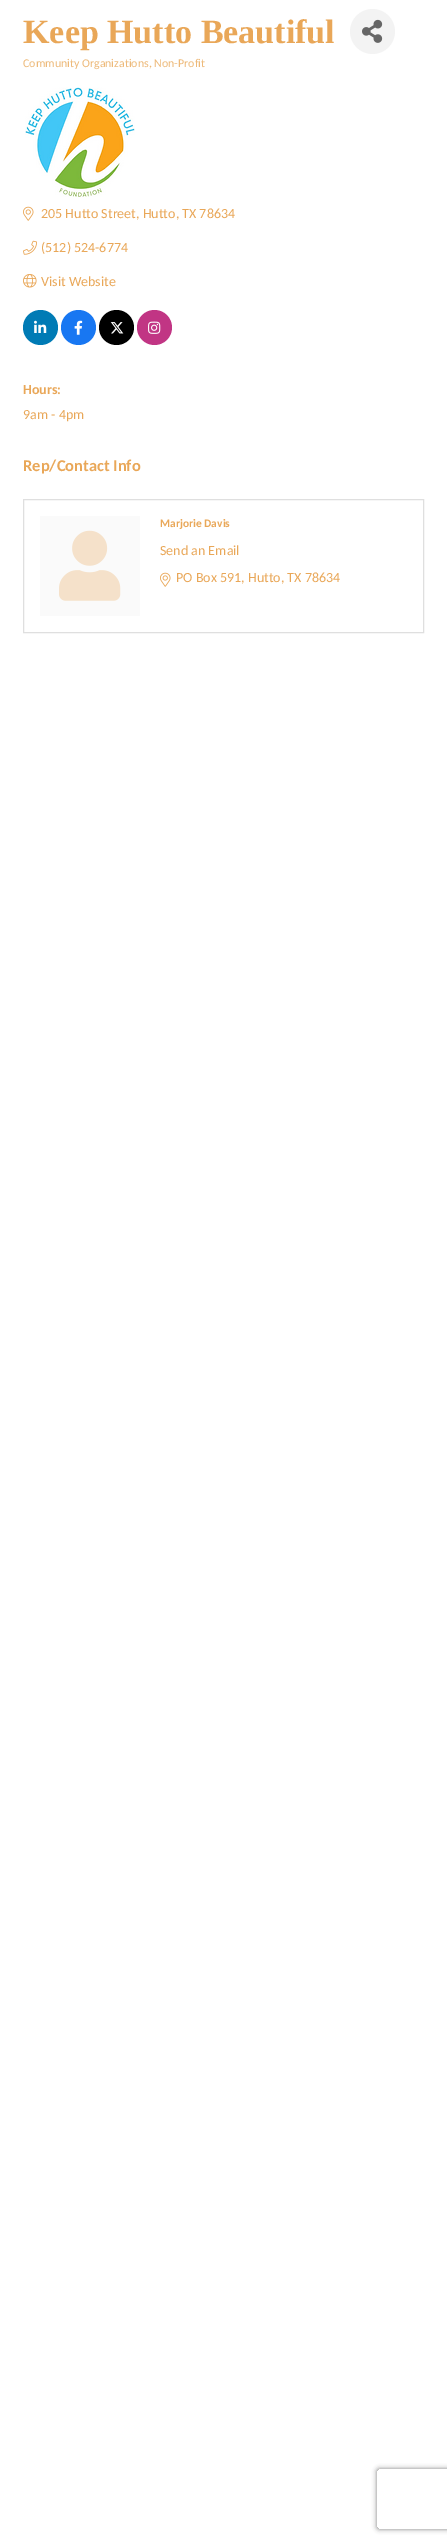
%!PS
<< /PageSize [447 2543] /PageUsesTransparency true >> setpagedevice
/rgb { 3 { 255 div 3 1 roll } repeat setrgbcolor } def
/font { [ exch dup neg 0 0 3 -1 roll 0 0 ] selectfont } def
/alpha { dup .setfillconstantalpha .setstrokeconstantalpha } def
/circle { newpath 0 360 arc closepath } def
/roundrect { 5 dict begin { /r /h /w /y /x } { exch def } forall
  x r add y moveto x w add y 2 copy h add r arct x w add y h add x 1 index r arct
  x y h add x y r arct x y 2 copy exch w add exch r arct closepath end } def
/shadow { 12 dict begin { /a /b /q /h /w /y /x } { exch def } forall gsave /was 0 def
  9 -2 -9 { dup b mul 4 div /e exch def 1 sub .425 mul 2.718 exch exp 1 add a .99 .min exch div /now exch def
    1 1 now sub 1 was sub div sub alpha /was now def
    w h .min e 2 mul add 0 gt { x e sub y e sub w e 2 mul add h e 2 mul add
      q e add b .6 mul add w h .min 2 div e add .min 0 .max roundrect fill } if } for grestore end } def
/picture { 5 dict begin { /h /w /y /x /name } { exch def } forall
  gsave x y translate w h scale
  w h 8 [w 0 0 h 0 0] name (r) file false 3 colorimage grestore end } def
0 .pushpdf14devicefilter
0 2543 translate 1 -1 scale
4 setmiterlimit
255 255 255 rgb
0 0 447 2543 rectfill
243 243 243 rgb
372.5 31.5 22.5 circle fill
(img/1.rgb) 362 19 21 24 picture
(img/2.rgb) 25 87 110 110 picture
(img/3.rgb) 23 206 11 15 picture
(img/4.rgb) 23 240 14 15 picture
(img/5.rgb) 23 274 14 14 picture
0 123 181 rgb
40.5 327.5 17.5 circle fill
(img/6.rgb) 34 320 13 13 picture
24 119 242 rgb
78.5 327.5 17.5 circle fill
(img/7.rgb) 74 320 9 15 picture
0 0 0 rgb
116.5 327.5 17.5 circle fill
(img/8.rgb) 110 322 14 12 picture
193 53 132 rgb
154.5 327.5 17.5 circle fill
(img/9.rgb) 148 321 13 13 picture
223 223 223 rgb
23.5 499.5 400 133 rectstroke
250 250 250 rgb
40 516 100 100 rectfill
(img/10.rgb) 59 530 62 71 picture
(img/3.rgb) 160 572 11 15 picture
gsave
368 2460 moveto 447 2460 lineto 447 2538 lineto 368 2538 lineto closepath 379 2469 moveto 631 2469 lineto 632 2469 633 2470 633 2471 curveto 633 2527 lineto 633 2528 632 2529 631 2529 curveto 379 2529 lineto 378 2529 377 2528 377 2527 curveto 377 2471 lineto 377 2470 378 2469 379 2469 curveto closepath eoclip newpath
128 128 128 rgb
377 2469 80 60 2 2.5 1 shadow
grestore
/LiberationSerif-Bold 34 font
233 167 88 rgb
23 43 moveto (Keep Hutto Beautiful) show
/Carlito-Regular 11.9 font
237 185 121 rgb
23 67 moveto (Community Organizations, Non-Profit) show
/Carlito-Regular 14 font
233 167 88 rgb
[
  [(205 Hutto Street, Hutto, TX 78634) 41 218]
  [(\(512\) 524-6774) 41 252]
  [(Visit Website) 41 286]
] { aload pop moveto show } forall
/Carlito-Bold 14 font
23 394 moveto (Hours:) show
/Carlito-Regular 14 font
23 419 moveto (9am - 4pm) show
/Carlito-Bold 16.5 font
23 471 moveto (Rep/Contact Info) show
/Carlito-Bold 11.5 font
160 527 moveto (Marjorie Davis) show
/Carlito-Regular 14 font
160 555 moveto (Send an Email) show
176 582 moveto (PO Box 591, Hutto, TX 78634) show
.poppdf14devicefilter showpage
